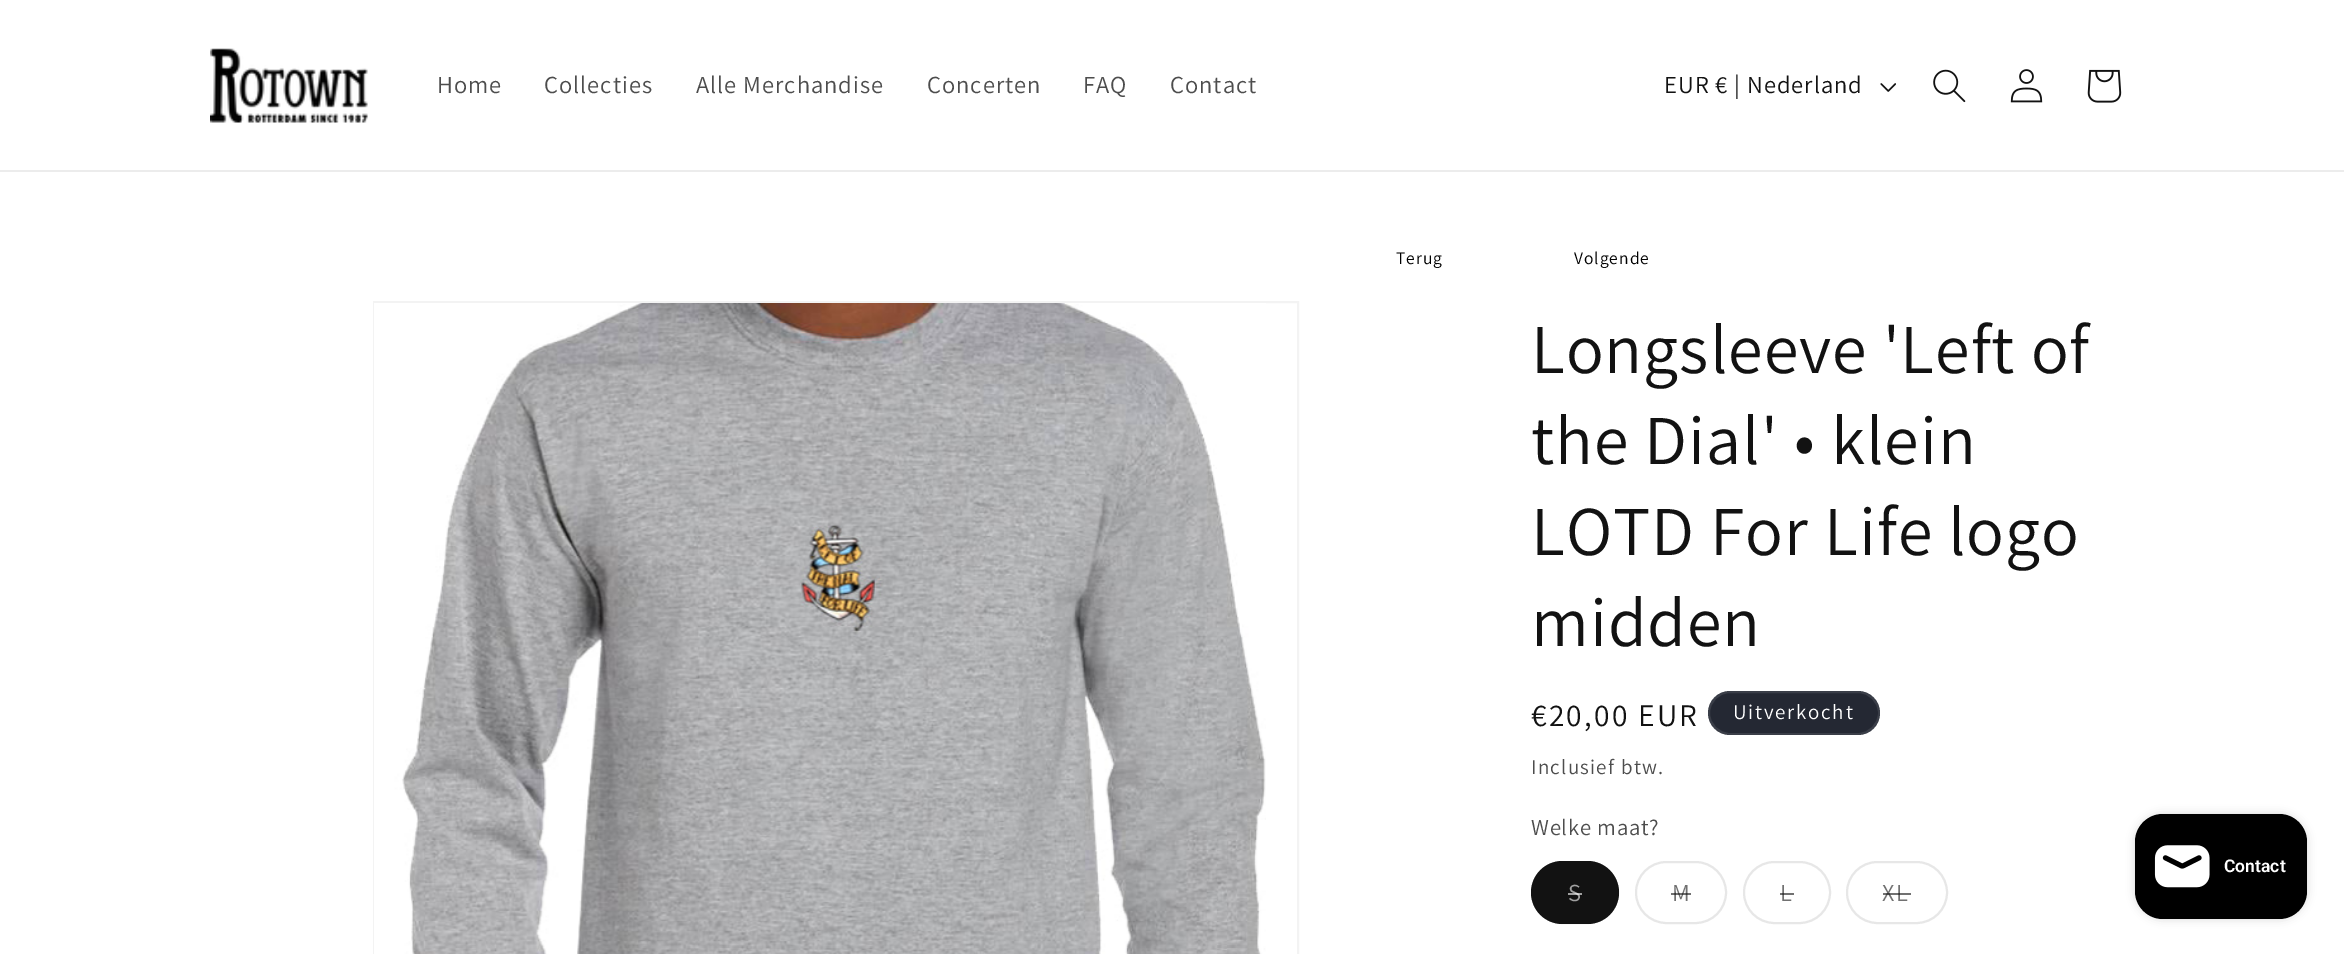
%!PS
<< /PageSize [2344 954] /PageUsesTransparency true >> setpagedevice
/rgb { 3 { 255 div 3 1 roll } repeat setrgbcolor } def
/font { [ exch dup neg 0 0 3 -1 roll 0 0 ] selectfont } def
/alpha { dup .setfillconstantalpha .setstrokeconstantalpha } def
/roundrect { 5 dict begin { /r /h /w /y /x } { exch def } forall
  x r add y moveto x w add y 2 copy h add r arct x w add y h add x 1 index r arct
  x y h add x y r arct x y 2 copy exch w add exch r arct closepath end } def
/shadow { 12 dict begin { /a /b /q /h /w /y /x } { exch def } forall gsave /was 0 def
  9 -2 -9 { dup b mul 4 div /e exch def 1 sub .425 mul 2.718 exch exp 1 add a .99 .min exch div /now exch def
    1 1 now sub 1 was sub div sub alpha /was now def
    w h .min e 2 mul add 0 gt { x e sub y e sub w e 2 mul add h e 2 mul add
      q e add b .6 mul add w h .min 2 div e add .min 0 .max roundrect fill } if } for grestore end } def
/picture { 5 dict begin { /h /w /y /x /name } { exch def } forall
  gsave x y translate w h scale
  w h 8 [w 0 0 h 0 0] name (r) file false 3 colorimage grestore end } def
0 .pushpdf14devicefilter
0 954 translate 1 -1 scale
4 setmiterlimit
255 255 255 rgb
0 0 2344 954 rectfill
236 236 236 rgb
0 170 2344 2 rectfill
(img/1.rgb) 210 48 158 75 picture
(img/2.rgb) 1880 83 16 9 picture
(img/3.rgb) 1933 69 33 34 picture
(img/4.rgb) 2010 69 33 34 picture
(img/5.rgb) 2087 69 35 34 picture
243 243 243 rgb
2 setlinewidth
374 302 924 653 rectstroke
(img/6.rgb) 374 303 892 651 picture
36 40 51 rgb
1708 691 172 44 22 roundrect fill
0.1 alpha
255 255 255 rgb
1709 692 170 42 21 roundrect stroke
1 alpha
18 18 18 rgb
1531 861 88 63 31.5 roundrect fill
0.1 alpha
1532 862 86 61 30.5 roundrect stroke
1 alpha
231 231 231 rgb
1636 862 90 61 30.5 roundrect stroke
1744 862 86 61 30.5 roundrect stroke
1847 862 100 61 30.5 roundrect stroke
0 0 0 rgb
2135 814 172 105 28 4.5 0.15 shadow
2135 814 172 105 28 roundrect fill
(img/7.rgb) 2154 845 56 43 picture
/Assistant-Regular 24.5 font
77 77 77 rgb
437 93 moveto 1 0 (Home) ashow
544 93 moveto 1 0 (Collecties) ashow
696 93 moveto 1 0 (Alle Merchandise) ashow
927 93 moveto 1 0 (Concerten) ashow
1083 93 moveto 1 0 (FAQ) ashow
1170 93 moveto 1 0 (Contact) ashow
18 18 18 rgb
1664 93 moveto 1 0 (EUR € | Nederland) ashow
/Assistant-Regular 17.5 font
0 0 0 rgb
1396 264 moveto 1 0 (Terug) ashow
1574 264 moveto 1 0 (Volgende) ashow
/Assistant-Regular 70 font
18 18 18 rgb
1531 373 moveto 1 0 (Longsleeve 'Left of) ashow
1531 464 moveto 1 0 (the Dial' • klein) ashow
1531 555 moveto 1 0 (LOTD For Life logo) ashow
1531 646 moveto 1 0 (midden) ashow
/Assistant-Regular 31.5 font
1531 726 moveto 2.25 0 (€20,00 EUR) ashow
/Assistant-Regular 21 font
255 255 255 rgb
1733 719 moveto 1.75 0 (Uitverkocht) ashow
77 77 77 rgb
1531 774 moveto 1.25 0 (Inclusief btw.) ashow
/Assistant-Regular 22.75 font
1531 835 moveto 0.75 0 (Welke maat?) ashow
/Assistant-Regular 24.5 font
160 160 160 rgb
1568 901 moveto 1.75 0 (S) ashow
0.6 alpha
255 255 255 rgb
1568 893 14 2 rectfill
1 alpha
113 113 113 rgb
1672 901 moveto 1.75 0 (M) ashow
0.6 alpha
18 18 18 rgb
1671 893 20 2 rectfill
1 alpha
113 113 113 rgb
1780 901 moveto 1.75 0 (L) ashow
0.6 alpha
18 18 18 rgb
1780 893 14 2 rectfill
1 alpha
113 113 113 rgb
1882 901 moveto 1.75 0 (XL) ashow
0.6 alpha
18 18 18 rgb
1883 893 28 2 rectfill
/Roboto-SemiBold 17.5 font
1 alpha
255 255 255 rgb
2224 872 moveto (Contact) show
.poppdf14devicefilter showpage
